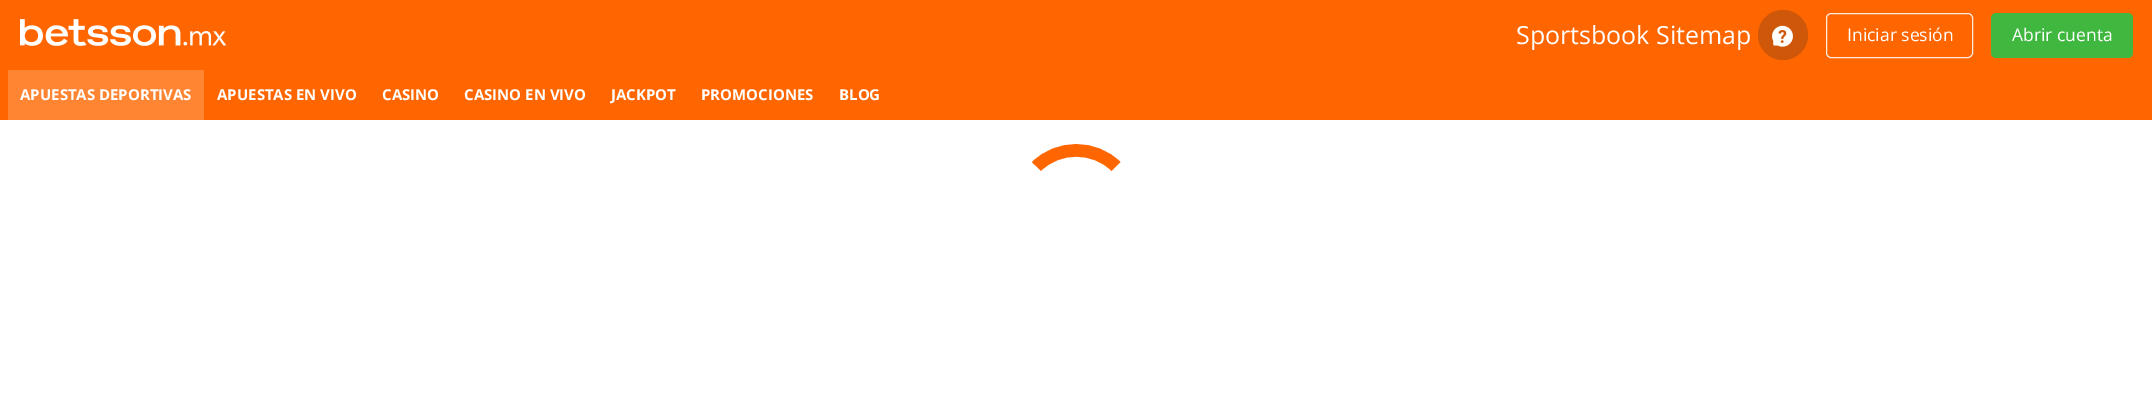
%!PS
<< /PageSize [2152 411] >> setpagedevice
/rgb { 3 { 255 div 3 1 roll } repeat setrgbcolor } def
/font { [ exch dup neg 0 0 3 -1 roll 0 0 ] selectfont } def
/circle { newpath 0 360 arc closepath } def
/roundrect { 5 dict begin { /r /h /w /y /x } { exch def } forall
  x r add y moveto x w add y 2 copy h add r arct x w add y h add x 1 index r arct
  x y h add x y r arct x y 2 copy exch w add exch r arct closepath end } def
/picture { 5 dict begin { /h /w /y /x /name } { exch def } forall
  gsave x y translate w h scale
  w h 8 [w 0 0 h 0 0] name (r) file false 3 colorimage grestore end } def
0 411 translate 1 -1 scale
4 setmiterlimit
255 255 255 rgb
0 0 2152 411 rectfill
255 102 0 rgb
0 0 2152 120 rectfill
(img/1.rgb) 20 19 206 27 picture
206 87 10 rgb
1783 35 25 circle fill
(img/2.rgb) 1772 25 21 22 picture
255 235 222 rgb
1826.5 13.5 146 44 4.5 roundrect stroke
64 184 64 rgb
1991 13 142 45 5 roundrect fill
255 133 51 rgb
8 70 196 50 rectfill
255 102 0 rgb
12.5 setlinewidth
1036.5 166.5 moveto 1058 145 1094.5 145 1116 166.5 curveto stroke
/OpenSans-Regular 25 font
255 255 255 rgb
1516 44 moveto (Sportsbook Sitemap) show
/OpenSans-Regular 17.5 font
1847 41 moveto (Iniciar sesión) show
2012 41 moveto (Abrir cuenta) show
/OpenSans-Bold 15 font
[
  [(APUESTAS DEPORTIVAS) 20 100]
  [(APUESTAS EN VIVO) 217 100]
  [(CASINO) 382 100]
  [(CASINO EN VIVO) 464 100]
  [(JACKPOT) 611 100]
  [(PROMOCIONES) 701 100]
  [(BLOG) 839 100]
] { aload pop moveto show } forall
showpage
